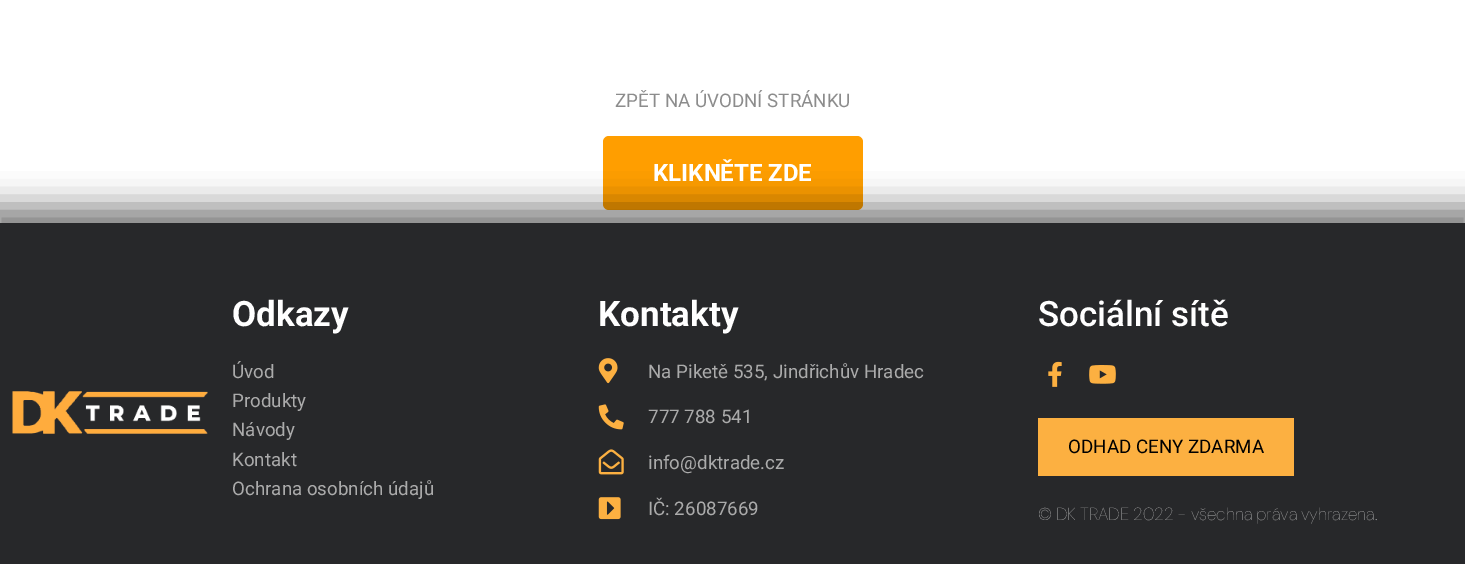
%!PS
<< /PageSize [1465 564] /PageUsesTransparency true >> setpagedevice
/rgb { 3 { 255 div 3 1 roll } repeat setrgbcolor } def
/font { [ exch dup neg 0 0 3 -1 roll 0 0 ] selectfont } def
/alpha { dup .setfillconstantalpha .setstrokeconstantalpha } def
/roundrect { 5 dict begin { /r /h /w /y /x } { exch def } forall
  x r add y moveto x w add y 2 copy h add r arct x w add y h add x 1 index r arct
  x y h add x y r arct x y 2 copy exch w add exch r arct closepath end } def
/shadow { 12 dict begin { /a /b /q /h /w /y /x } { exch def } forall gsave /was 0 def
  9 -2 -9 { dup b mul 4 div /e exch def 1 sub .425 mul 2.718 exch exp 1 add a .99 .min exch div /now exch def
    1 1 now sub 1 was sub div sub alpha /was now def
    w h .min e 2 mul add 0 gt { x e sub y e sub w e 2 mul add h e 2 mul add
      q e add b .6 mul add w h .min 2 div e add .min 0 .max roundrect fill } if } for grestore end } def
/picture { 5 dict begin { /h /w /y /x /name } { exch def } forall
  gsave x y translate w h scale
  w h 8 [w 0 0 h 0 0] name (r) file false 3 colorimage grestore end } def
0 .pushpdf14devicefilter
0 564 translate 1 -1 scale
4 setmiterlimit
255 255 255 rgb
0 0 1465 564 rectfill
255 158 0 rgb
603 136 260 74 6 roundrect fill
0 0 0 rgb
-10 206 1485 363 0 15.5 0.5 shadow
39 40 42 rgb
0 223 1465 341 rectfill
(img/1.rgb) 12 391 196 43 picture
(img/2.rgb) 598 358 20 26 picture
(img/3.rgb) 598 404 26 26 picture
(img/4.rgb) 598 449 26 26 picture
(img/5.rgb) 598 497 23 23 picture
(img/6.rgb) 1048 361 14 26 picture
(img/7.rgb) 1089 365 27 19 picture
252 176 65 rgb
1038 418 256 58 rectfill
/Roboto-Regular 18.75 font
140 140 140 rgb
615 107 moveto (ZPĚT NA ÚVODNÍ STRÁNKU) show
/Roboto-Bold 24 font
255 255 255 rgb
653 181 moveto (KLIKNĚTE ZDE) show
/Roboto-Bold 35 font
232 326 moveto (Odkazy) show
/Roboto-Regular 18.75 font
171 171 171 rgb
[
  [(Úvod) 232 378]
  [(Produkty) 232 407]
  [(Návody) 232 436]
  [(Kontakt) 232 466]
  [(Ochrana osobních údajů) 232 495]
] { aload pop moveto show } forall
/Roboto-Bold 35 font
255 255 255 rgb
598 326 moveto (Kontakty) show
/Roboto-Regular 18.75 font
171 171 171 rgb
[
  [(Na Piketě 535, Jindřichův Hradec) 648 378]
  [(777 788 541) 648 423]
  [(info@dktrade.cz) 648 469]
  [(IČ: 26087669) 648 515]
] { aload pop moveto show } forall
/Roboto-Medium 35 font
255 255 255 rgb
1038 326 moveto (Sociální sítě) show
/Roboto-Regular 18.75 font
0 0 0 rgb
1068 453 moveto (ODHAD CENY ZDARMA) show
/DMSans-Thin 17.5 font
171 171 171 rgb
1038 520 moveto (© DK TRADE 2022 - všechna práva vyhrazena.) show
.poppdf14devicefilter showpage
